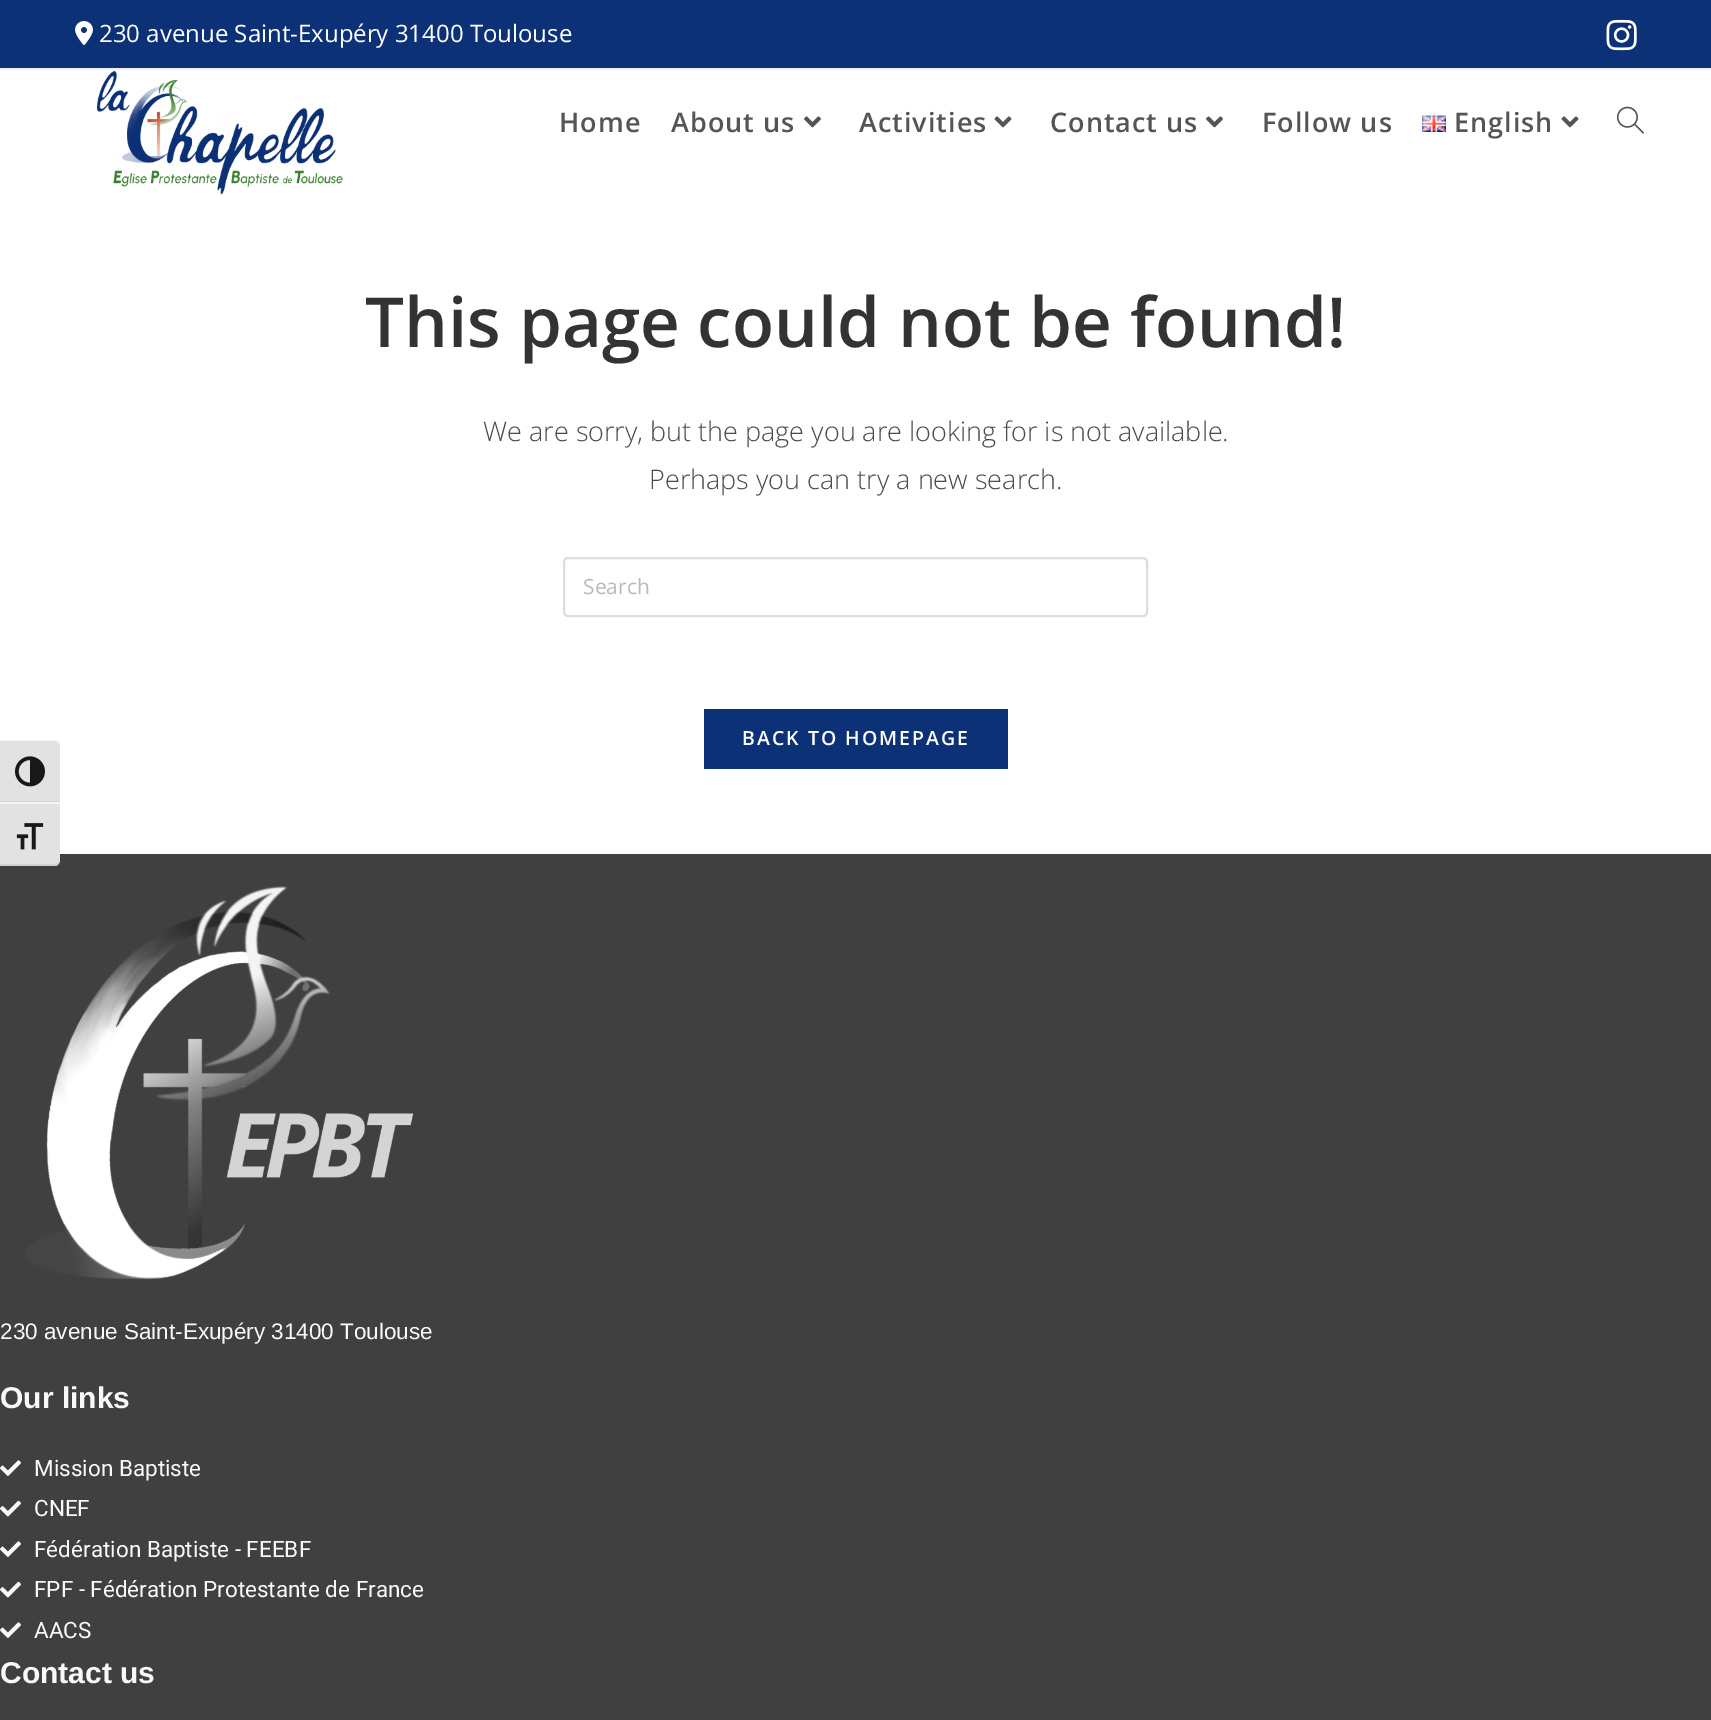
%!PS
<< /PageSize [1711 1720] >> setpagedevice
/rgb { 3 { 255 div 3 1 roll } repeat setrgbcolor } def
/font { [ exch dup neg 0 0 3 -1 roll 0 0 ] selectfont } def
/roundrect { 5 dict begin { /r /h /w /y /x } { exch def } forall
  x r add y moveto x w add y 2 copy h add r arct x w add y h add x 1 index r arct
  x y h add x y r arct x y 2 copy exch w add exch r arct closepath end } def
/picture { 5 dict begin { /h /w /y /x /name } { exch def } forall
  gsave x y translate w h scale
  w h 8 [w 0 0 h 0 0] name (r) file false 3 colorimage grestore end } def
0 1720 translate 1 -1 scale
4 setmiterlimit
255 255 255 rgb
0 0 1711 1720 rectfill
13 49 118 rgb
0 0 1711 68 rectfill
241 241 241 rgb
0 68 1711 2 rectfill
(img/1.rgb) 75 21 18 24 picture
(img/2.rgb) 1606 19 31 32 picture
(img/3.rgb) 97 71 246 124 picture
(img/4.rgb) 804 116 17 12 picture
(img/5.rgb) 994 116 18 12 picture
(img/4.rgb) 1206 116 17 12 picture
(img/6.rgb) 1422 115 24 17 picture
(img/5.rgb) 1561 116 18 12 picture
(img/7.rgb) 1616 106 28 28 picture
221 221 221 rgb
2 setlinewidth
564 558 583 58 4 roundrect stroke
13 49 118 rgb
704 709 304 60 rectfill
65 64 64 rgb
0 854 1711 866 rectfill
(img/8.rgb) 26 886 388 394 picture
(img/9.rgb) 0 1460 21 16 picture
(img/10.rgb) 0 1500 21 17 picture
(img/9.rgb) 0 1541 21 16 picture
(img/10.rgb) 0 1581 21 17 picture
(img/9.rgb) 0 1622 21 16 picture
226 226 226 rgb
0 740 moveto 54 740 lineto 57.5 740 60 742.5 60 746 curveto 60 803 lineto 0 803 lineto closepath fill
245 245 245 rgb
0 741 moveto 54 741 lineto 57 741 60 743 60 746 curveto 60 742 57 740 54 740 curveto 0 740 lineto closepath fill
210 210 210 rgb
0 801 60 1 rectfill
(img/11.rgb) 15 756 30 31 picture
226 226 226 rgb
0 803 moveto 60 803 lineto 60 860 lineto 60 863.5 57.5 866 54 866 curveto 0 866 lineto closepath fill
245 245 245 rgb
0 802 60 2 rectfill
210 210 210 rgb
56 866 moveto 58 865 60 862 60 860 curveto 60 862 57 864 54 864 curveto 0 864 lineto 0 866 lineto closepath fill
(img/12.rgb) 16 823 28 27 picture
/OpenSans-Regular 24 font
255 255 255 rgb
99 42 moveto (230 avenue Saint-Exupéry 31400 Toulouse) show
/OpenSans-SemiBold 27 font
85 85 85 rgb
559 132 moveto 1 0 (Home) ashow
671 132 moveto 1 0 (About us) ashow
859 132 moveto 1 0 (Activities) ashow
1050 132 moveto 1 0 (Contact us) ashow
1262 132 moveto 1 0 (Follow us) ashow
1454 132 moveto 1 0 (English) ashow
/OpenSans-SemiBold 69 font
51 51 51 rgb
365 347 moveto (This page could not be found!) show
/OpenSans-Light 27 font
74 74 74 rgb
483 441 moveto (We are sorry, but the page you are looking for is not available.) show
649 489 moveto (Perhaps you can try a new search.) show
/OpenSans-Regular 21 font
186 186 186 rgb
583 594 moveto (Search) show
/OpenSans-SemiBold 19.5 font
255 255 255 rgb
742 745 moveto 2 0 (BACK TO HOMEPAGE) ashow
/LiberationSans-Regular 22.5 font
249 249 249 rgb
0 1339 moveto (230 avenue Saint-Exupéry 31400 Toulouse) show
/LiberationSans-Bold 30 font
0 1408 moveto (Our links) show
/Roboto-Regular 22.5 font
[
  [(Mission Baptiste) 34 1476]
  [(CNEF) 34 1516]
  [(Fédération Baptiste - FEEBF) 34 1557]
  [(FPF - Fédération Protestante de France) 34 1597]
  [(AACS) 34 1638]
] { aload pop moveto show } forall
/LiberationSans-Bold 30 font
0 1683 moveto (Contact us) show
showpage
